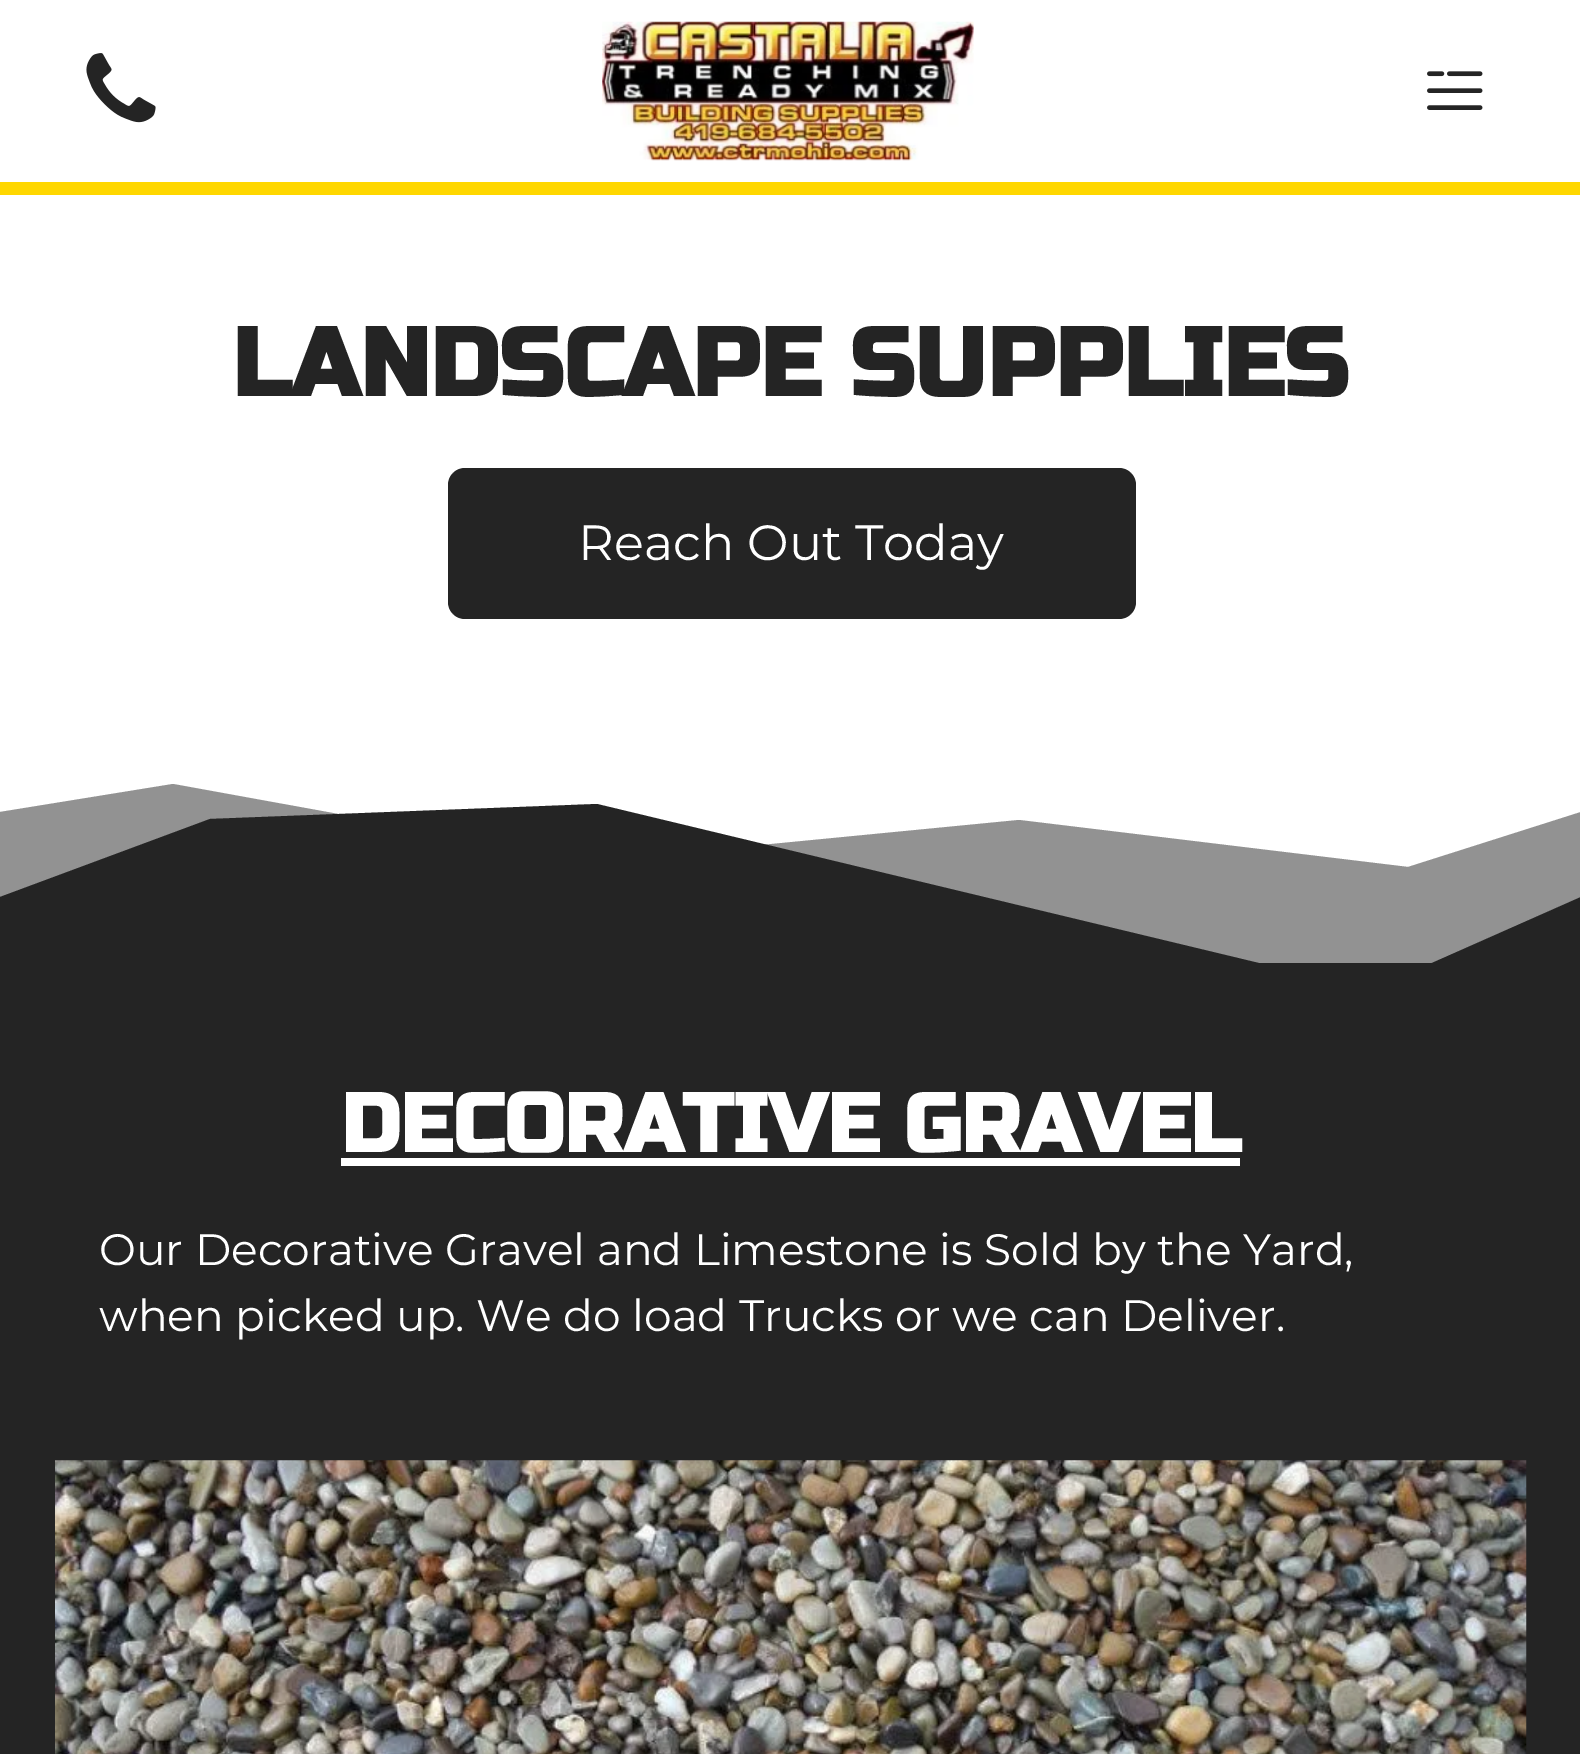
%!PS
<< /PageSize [1580 1754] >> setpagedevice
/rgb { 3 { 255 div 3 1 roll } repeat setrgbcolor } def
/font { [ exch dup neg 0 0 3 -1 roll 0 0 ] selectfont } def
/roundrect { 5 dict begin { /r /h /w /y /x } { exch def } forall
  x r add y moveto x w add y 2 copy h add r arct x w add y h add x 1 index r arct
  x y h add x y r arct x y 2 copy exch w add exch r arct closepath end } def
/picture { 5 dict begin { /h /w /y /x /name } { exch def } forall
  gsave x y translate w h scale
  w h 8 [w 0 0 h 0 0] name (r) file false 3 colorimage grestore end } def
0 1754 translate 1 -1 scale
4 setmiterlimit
255 255 255 rgb
0 0 1580 1754 rectfill
255 215 0 rgb
0 182 1580 13 rectfill
(img/1.rgb) 86 53 70 70 picture
(img/2.rgb) 602 21 372 140 picture
(img/3.rgb) 1427 71 56 39 picture
36 36 36 rgb
448 468 688 151 17 roundrect fill
146 146 146 rgb
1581 812 moveto 1408 867 lineto 1019 820 lineto 597 861 lineto 173 784 lineto 0 812 lineto 0 990 lineto 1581 990 lineto closepath fill
36 36 36 rgb
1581 990 moveto 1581 897 lineto 1371 990 lineto 597 804 lineto 210 819 lineto 0 897 lineto 0 990 lineto closepath fill
0 963 1580 791 rectfill
255 255 255 rgb
341 1158 899 8 rectfill
(img/4.rgb) 55 1460 1472 294 picture
/RussoOne-Bold 96.25 font
36 36 36 rgb
232 396 moveto (LANDSCAPE SUPPLIES) show
/Montserrat-Regular 49.5 font
255 255 255 rgb
578 560 moveto (Reach Out Today) show
/RussoOne-Bold 82.5 font
341 1152 moveto (DECORATIVE GRAVEL) show
/Montserrat-Regular 44 font
99 1265 moveto (Our Decorative Gravel and Limestone is Sold by the Yard,) show
99 1331 moveto (when picked up. We do load Trucks or we can Deliver.) show
showpage
